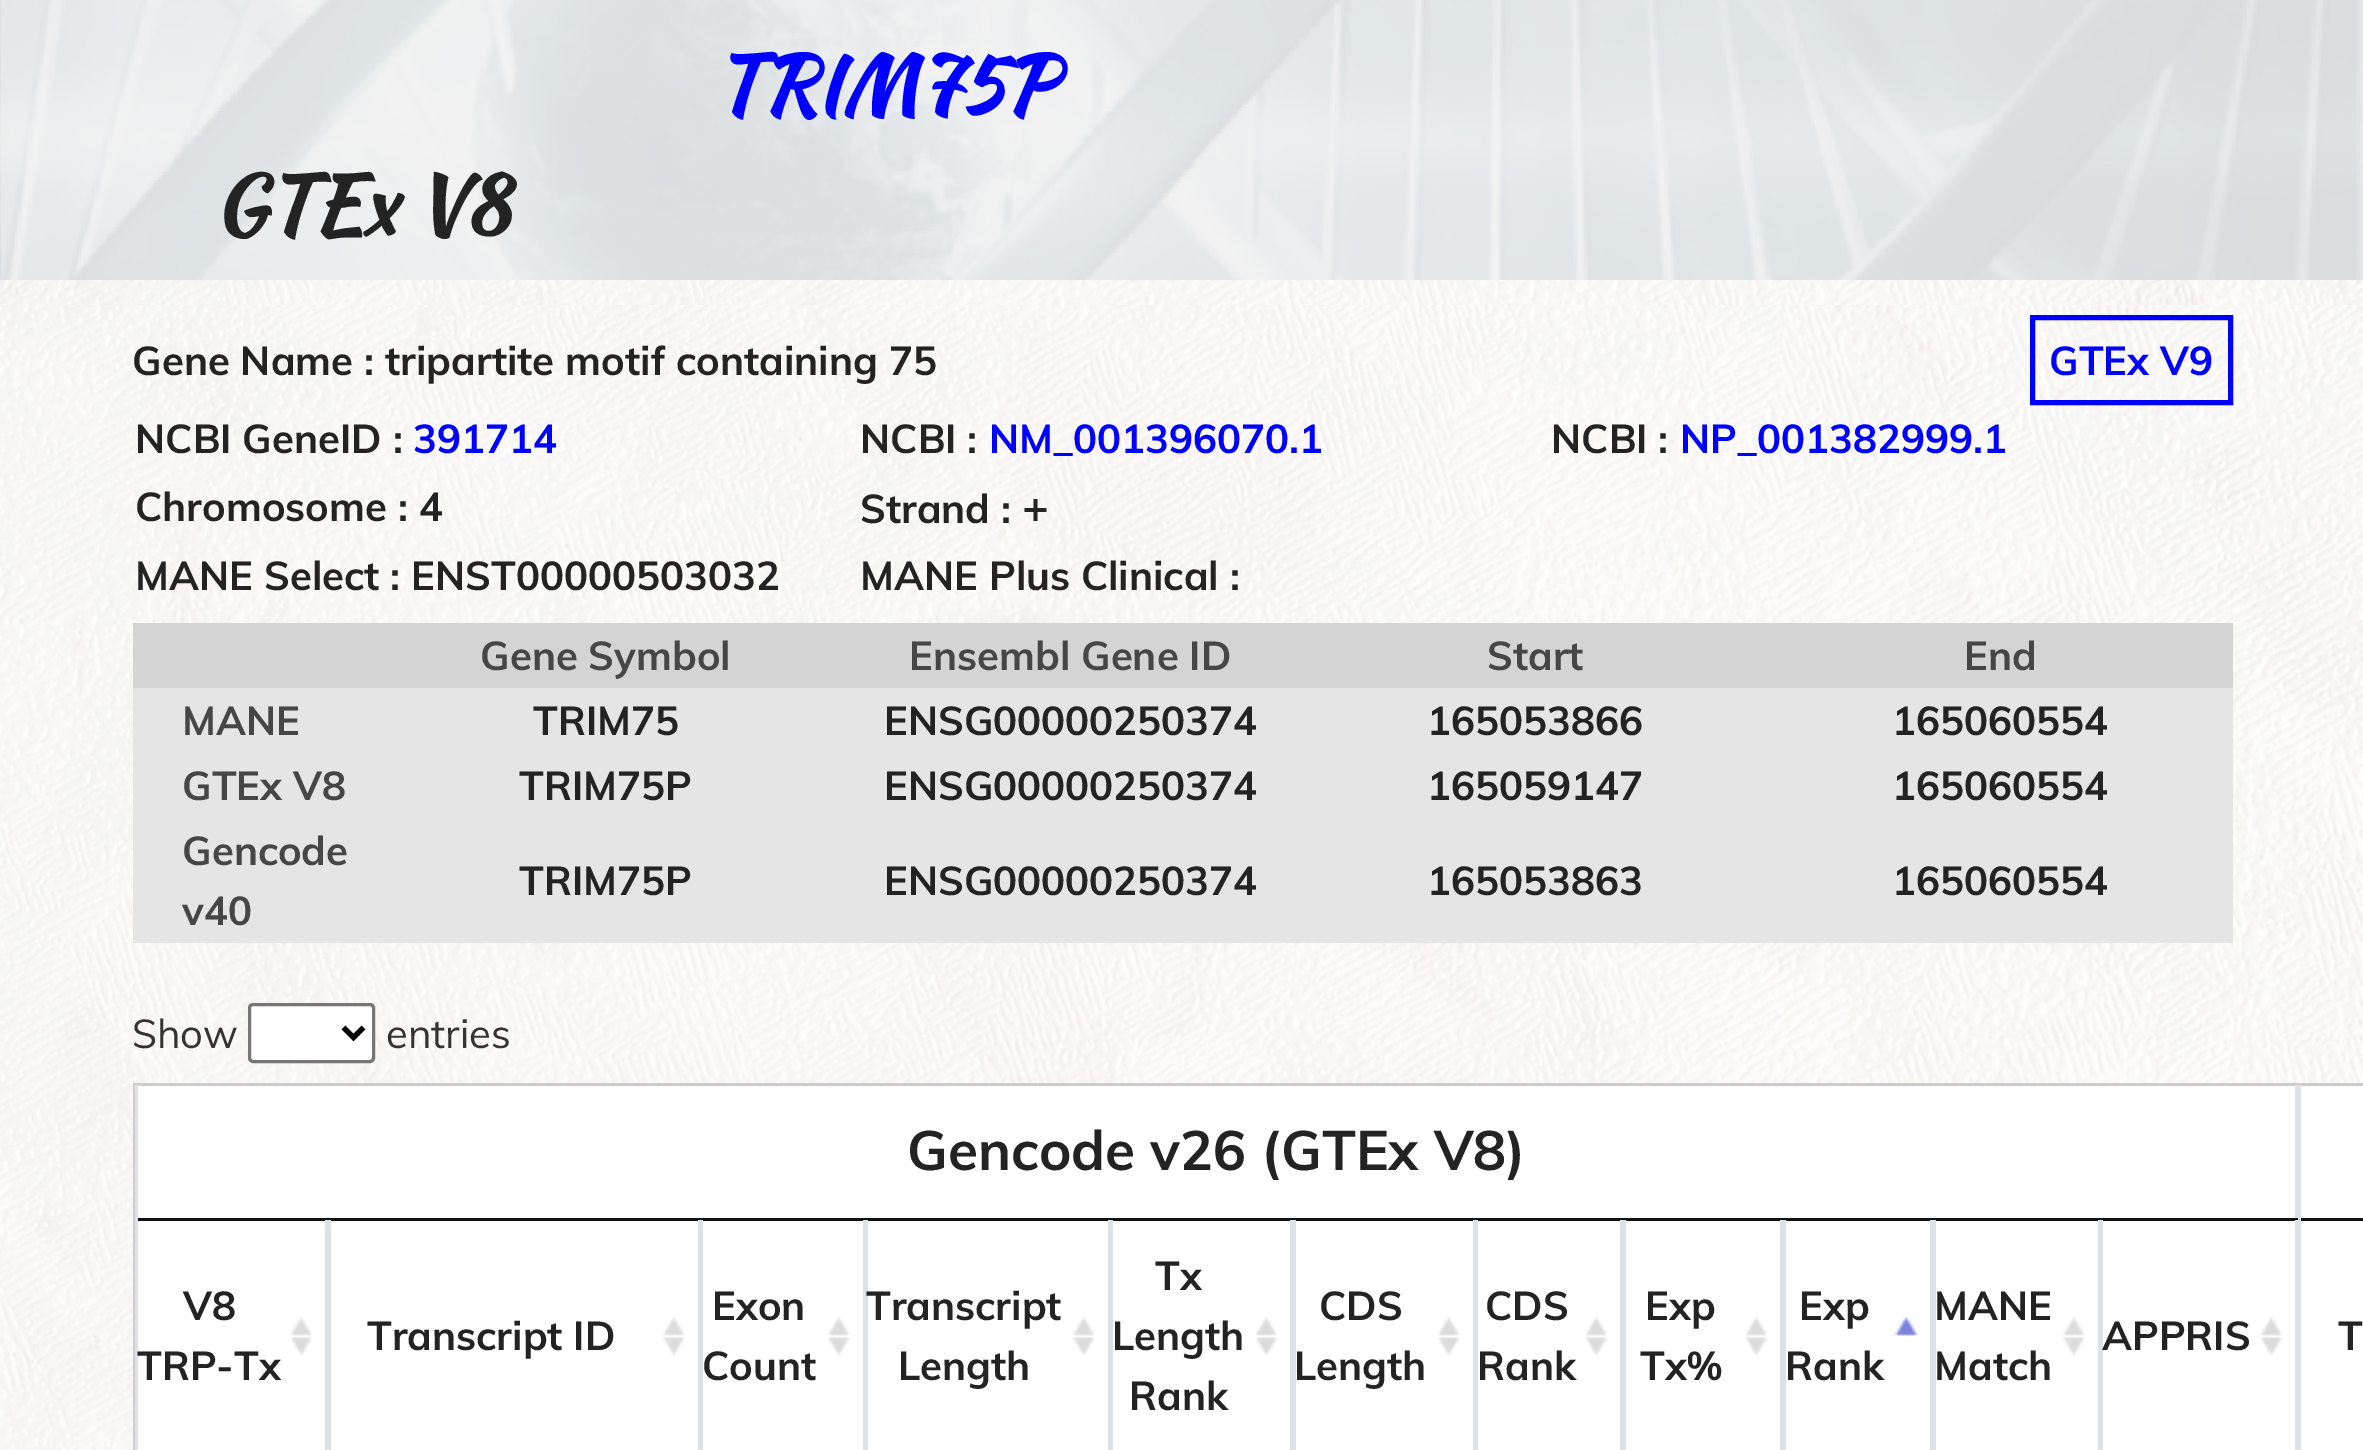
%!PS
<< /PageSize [2363 1450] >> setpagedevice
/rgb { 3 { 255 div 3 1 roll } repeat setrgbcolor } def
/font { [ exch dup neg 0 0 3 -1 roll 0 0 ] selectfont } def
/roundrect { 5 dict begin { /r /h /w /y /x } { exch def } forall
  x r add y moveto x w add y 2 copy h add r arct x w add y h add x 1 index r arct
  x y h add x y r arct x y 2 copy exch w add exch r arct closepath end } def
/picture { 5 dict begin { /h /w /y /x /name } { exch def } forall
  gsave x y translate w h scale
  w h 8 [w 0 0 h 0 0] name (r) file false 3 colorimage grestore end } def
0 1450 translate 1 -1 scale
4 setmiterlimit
255 255 255 rgb
0 0 2363 1450 rectfill
(img/1.rgb) 0 0 2363 280 picture
(img/2.rgb) 0 280 2363 25 picture
(img/3.rgb) 0 305 2363 1145 picture
0 0 255 rgb
5 setlinewidth
2032.5 317.5 198 85 rectstroke
229 229 229 rgb
133 688 2100 255 rectfill
212 212 212 rgb
133 623 2100 65 rectfill
255 255 255 rgb
249.5 1004.5 124 57 3.5 roundrect gsave fill grestore
118 118 118 rgb
3 setlinewidth
stroke
0 0 0 rgb
5 setlinewidth
343.5 1027.5 moveto 353.5 1037.5 lineto 363.5 1027.5 lineto stroke
[
  [138 1086 2225 364 255 255 255]
  [133 1083 2230 3 204 204 204]
  [133 1083 3 367 204 204 204]
  [2295 1085 3 135 222 226 230]
  [135 1218 2228 3 17 17 17]
  [135 1085 3 365 222 226 230]
  [2298 1085 3 135 222 226 230]
] { aload pop rgb rectfill } forall
(img/4.rgb) 290 1317 23 39 picture
325 1220 6 230 rectfill
(img/5.rgb) 662 1317 23 39 picture
698 1220 5 230 rectfill
(img/6.rgb) 827 1317 23 39 picture
863 1220 5 230 rectfill
(img/5.rgb) 1072 1317 23 39 picture
1108 1220 5 230 rectfill
(img/7.rgb) 1255 1317 23 39 picture
1290 1220 6 230 rectfill
(img/5.rgb) 1437 1317 23 39 picture
1473 1220 5 230 rectfill
(img/8.rgb) 1585 1317 23 39 picture
1620 1220 6 230 rectfill
(img/8.rgb) 1745 1317 23 39 picture
1780 1220 6 230 rectfill
(img/9.rgb) 1894 1317 25 19 picture
1930 1220 6 230 rectfill
(img/10.rgb) 2062 1317 23 39 picture
2098 1220 5 230 rectfill
(img/4.rgb) 2260 1317 23 39 picture
2295 1220 6 230 rectfill
/KaushanScript-Bold 80 font
0 0 255 rgb
713 113 moveto (TRIM75P) show
35 35 35 rgb
213 233 moveto (GTEx V8) show
/Muli-Bold 40 font
132 375 moveto (Gene Name : tripartite motif containing 75) show
0 0 255 rgb
2049 375 moveto (GTEx V9) show
35 35 35 rgb
135 453 moveto (NCBI GeneID :) show
0 0 255 rgb
413 453 moveto (391714) show
35 35 35 rgb
860 453 moveto (NCBI :) show
0 0 255 rgb
989 453 moveto (NM_001396070.1) show
35 35 35 rgb
1551 453 moveto (NCBI :) show
0 0 255 rgb
1680 453 moveto (NP_001382999.1) show
35 35 35 rgb
135 521 moveto (Chromosome : 4) show
860 523 moveto (Strand :) show
/Muli-Bold 45 font
1022 523 moveto (+) show
/Muli-Bold 40 font
135 590 moveto (MANE Select : ENST00000503032) show
860 590 moveto (MANE Plus Clinical :) show
70 70 70 rgb
[
  [(Gene Symbol) 480 670]
  [(Ensembl Gene ID) 909 670]
  [(Start) 1487 670]
  [(End) 1964 670]
  [(MANE) 182 735]
] { aload pop moveto show } forall
35 35 35 rgb
[
  [(TRIM75) 533 735]
  [(ENSG00000250374) 884 735]
  [(165053866) 1427 735]
  [(165060554) 1892 735]
] { aload pop moveto show } forall
70 70 70 rgb
182 800 moveto (GTEx V8) show
35 35 35 rgb
[
  [(TRIM75P) 519 800]
  [(ENSG00000250374) 884 800]
  [(165059147) 1427 800]
  [(165060554) 1892 800]
] { aload pop moveto show } forall
70 70 70 rgb
182 865 moveto (Gencode) show
182 925 moveto (v40) show
35 35 35 rgb
[
  [(TRIM75P) 519 895]
  [(ENSG00000250374) 884 895]
  [(165053863) 1427 895]
  [(165060554) 1892 895]
] { aload pop moveto show } forall
/Muli-Regular 40 font
51 51 51 rgb
132 1048 moveto (Show) show
386 1048 moveto (entries) show
/Muli-Bold 55 font
35 35 35 rgb
907 1170 moveto (Gencode v26 \(GTEx V8\)) show
/Muli-Bold 40 font
[
  [(V8) 183 1320]
  [(TRP-Tx) 137 1380]
  [(Transcript ID) 367 1350]
  [(Exon) 712 1320]
  [(Count) 702 1380]
  [(Transcript) 866 1320]
  [(Length) 898 1380]
  [(Tx) 1155 1290]
  [(Length) 1112 1350]
  [(Rank) 1129 1410]
  [(CDS) 1319 1320]
  [(Length) 1294 1380]
  [(CDS) 1485 1320]
  [(Rank) 1477 1380]
  [(Exp) 1645 1320]
  [(Tx%) 1640 1380]
  [(Exp) 1799 1320]
  [(Rank) 1785 1380]
  [(MANE) 1934 1320]
  [(Match) 1934 1380]
  [(APPRIS) 2102 1350]
  [(T) 2338 1350]
] { aload pop moveto show } forall
showpage
